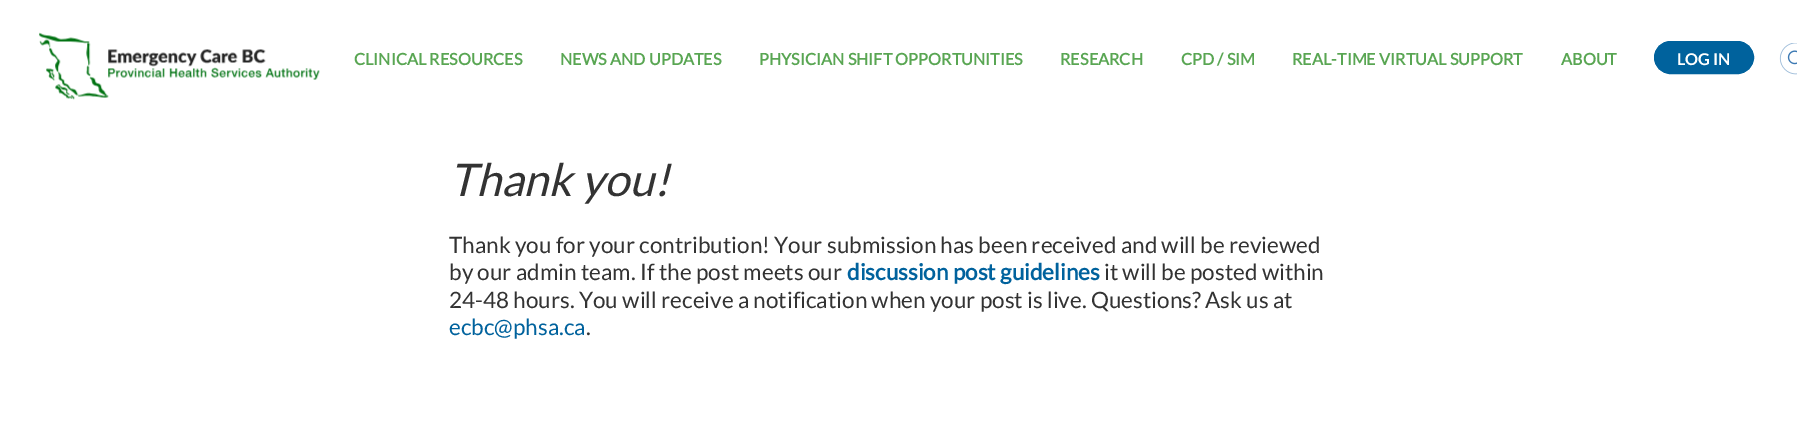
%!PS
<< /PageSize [1797 427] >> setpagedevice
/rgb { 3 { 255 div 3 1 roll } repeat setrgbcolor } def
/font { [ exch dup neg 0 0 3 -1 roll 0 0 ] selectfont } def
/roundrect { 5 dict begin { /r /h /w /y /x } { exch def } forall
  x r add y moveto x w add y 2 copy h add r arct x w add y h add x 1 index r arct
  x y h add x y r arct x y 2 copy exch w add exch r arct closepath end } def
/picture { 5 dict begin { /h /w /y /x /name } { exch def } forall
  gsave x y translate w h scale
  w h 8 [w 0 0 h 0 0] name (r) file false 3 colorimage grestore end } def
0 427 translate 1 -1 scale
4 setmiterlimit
255 255 255 rgb
0 0 1797 427 rectfill
(img/1.rgb) 39 32 281 68 picture
0 98 157 rgb
1654.5 41.5 99 32 16 roundrect gsave fill grestore
stroke
(img/2.rgb) 1779 43 18 32 picture
/Lato-Bold 16.25 font
89 166 83 rgb
[
  [(CLINICAL RESOURCES) 354 65]
  [(NEWS AND UPDATES) 560 65]
  [(PHYSICIAN SHIFT OPPORTUNITIES) 759 65]
  [(RESEARCH) 1060 65]
  [(CPD / SIM) 1181 65]
  [(REAL-TIME VIRTUAL SUPPORT) 1292 65]
  [(ABOUT) 1561 65]
] { aload pop moveto show } forall
/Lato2-Bold 16.25 font
255 255 255 rgb
1677 65 moveto (LOG IN) show
/Lato-Italic 45 font
51 51 51 rgb
449 196 moveto (Thank you!) show
/Lato-Regular 22.5 font
449 253 moveto (Thank you for your contribution! Your submission has been received and will be reviewed) show
449 280 moveto (by our admin team. If the post meets our) show
/Lato-Bold 22.5 font
0 98 157 rgb
847 280 moveto (discussion post guidelines) show
/Lato-Regular 22.5 font
51 51 51 rgb
1104 280 moveto (it will be posted within) show
449 308 moveto (24-48 hours. You will receive a notification when your post is live. Questions? Ask us at) show
0 98 157 rgb
449 335 moveto (ecbc@phsa.ca) show
51 51 51 rgb
586 335 moveto (.) show
showpage
